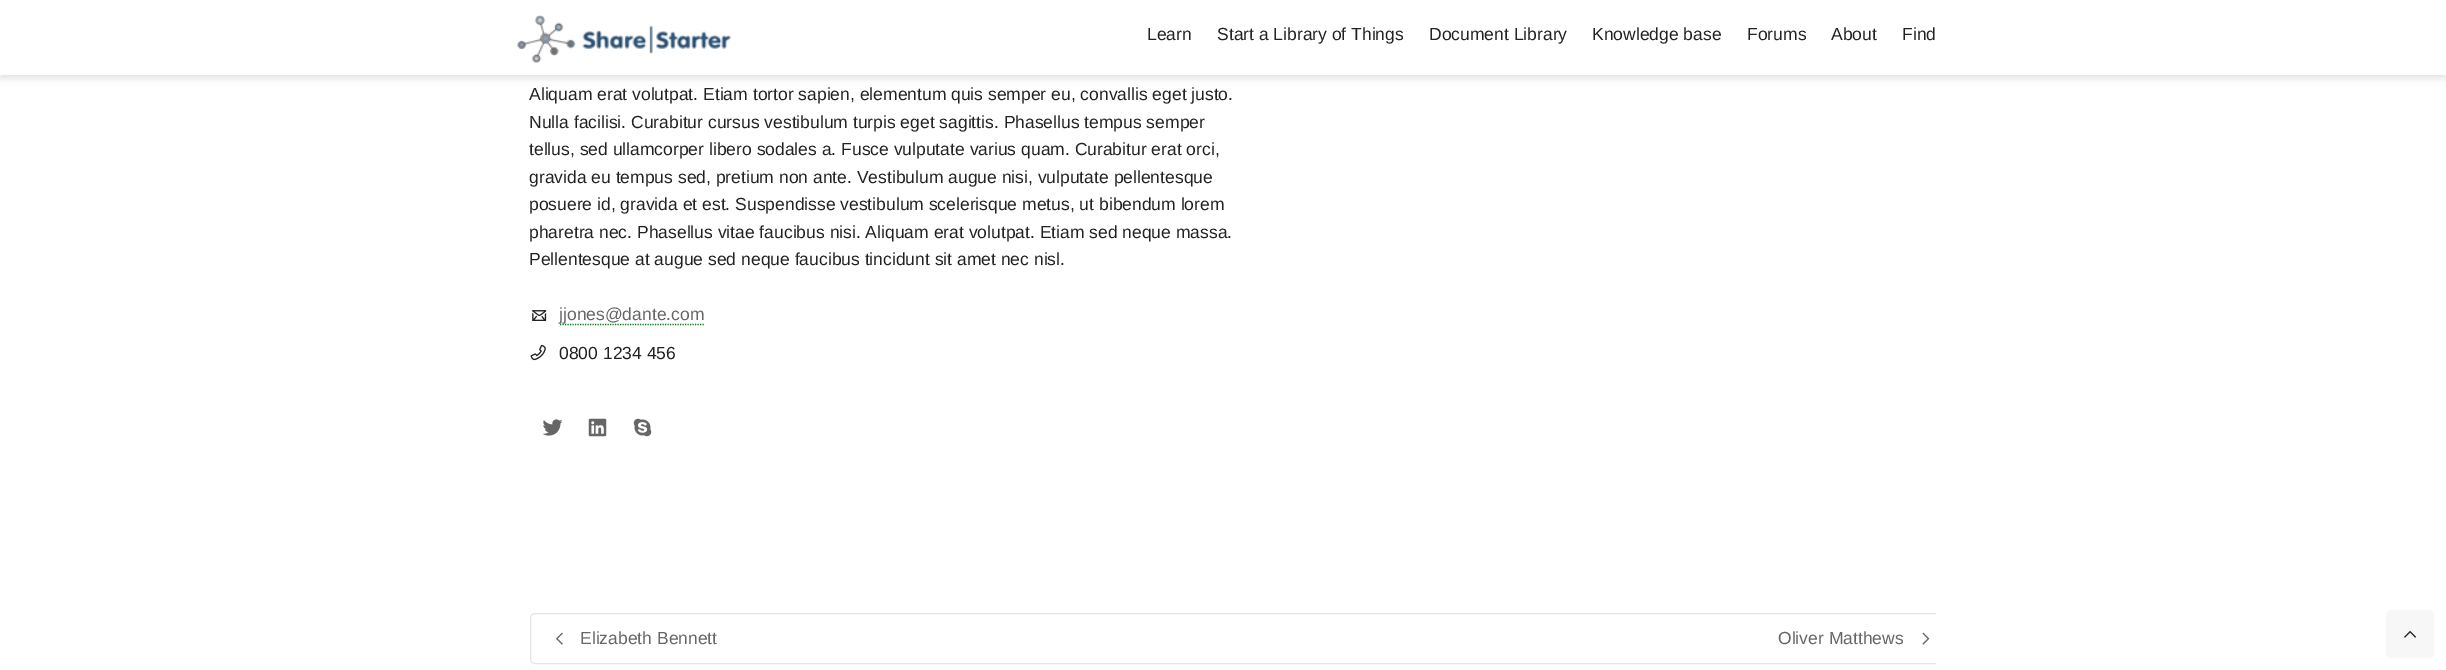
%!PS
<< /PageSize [2446 670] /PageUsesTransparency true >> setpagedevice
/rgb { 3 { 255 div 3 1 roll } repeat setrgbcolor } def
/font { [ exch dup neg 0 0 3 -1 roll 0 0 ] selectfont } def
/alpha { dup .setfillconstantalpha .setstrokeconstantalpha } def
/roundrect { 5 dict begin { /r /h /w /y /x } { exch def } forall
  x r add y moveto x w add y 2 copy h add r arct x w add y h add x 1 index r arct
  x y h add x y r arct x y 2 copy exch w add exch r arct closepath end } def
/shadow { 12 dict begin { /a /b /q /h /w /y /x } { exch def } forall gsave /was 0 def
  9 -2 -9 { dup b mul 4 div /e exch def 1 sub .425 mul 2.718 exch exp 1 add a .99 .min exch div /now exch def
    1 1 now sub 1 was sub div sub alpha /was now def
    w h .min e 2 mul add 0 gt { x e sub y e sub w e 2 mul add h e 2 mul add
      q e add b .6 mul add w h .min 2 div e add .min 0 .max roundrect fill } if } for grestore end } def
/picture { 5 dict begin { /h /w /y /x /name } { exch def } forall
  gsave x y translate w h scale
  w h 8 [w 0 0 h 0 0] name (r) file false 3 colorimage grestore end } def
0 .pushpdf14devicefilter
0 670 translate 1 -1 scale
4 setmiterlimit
255 255 255 rgb
0 0 2446 670 rectfill
0 0 0 rgb
0 4 2446 75 0 3 0.1 shadow
255 255 255 rgb
0 0 2446 75 rectfill
(img/1.rgb) 517 15 215 48 picture
(img/2.rgb) 532 310 15 11 picture
7 122 32 rgb
1.2 setlinewidth
[1.25 1.25] 0 setdash
560 324.5 moveto 705 324.5 lineto stroke
(img/3.rgb) 530 344 16 17 picture
(img/4.rgb) 542 419 21 17 picture
(img/5.rgb) 588 418 19 19 picture
(img/6.rgb) 633 418 19 19 picture
gsave
511 0 1425 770 rectclip
228 228 228 rgb
1 setlinewidth
[] 0 setdash
530.5 613.5 1424 50 4.5 roundrect stroke
grestore
(img/7.rgb) 556 632 7 13 picture
(img/8.rgb) 1922 632 8 13 picture
247 247 247 rgb
2386 610 48 48 5 roundrect fill
(img/9.rgb) 2404 630 13 8 picture
/LiberationSans-Regular 17.5 font
34 34 34 rgb
[
  [(Learn) 1147 40]
  [(Start a Library of Things) 1217 40]
  [(Document Library) 1429 40]
  [(Knowledge base) 1592 40]
  [(Forums) 1747 40]
  [(About) 1831 40]
  [(Find) 1902 40]
  [(Aliquam erat volutpat. Etiam tortor sapien, elementum quis semper eu, convallis eget justo.) 529 100]
  [(Nulla facilisi. Curabitur cursus vestibulum turpis eget sagittis. Phasellus tempus semper) 529 128]
  [(tellus, sed ullamcorper libero sodales a. Fusce vulputate varius quam. Curabitur erat orci,) 529 155]
  [(gravida eu tempus sed, pretium non ante. Vestibulum augue nisi, vulputate pellentesque) 529 183]
  [(posuere id, gravida et est. Suspendisse vestibulum scelerisque metus, ut bibendum lorem) 529 210]
  [(pharetra nec. Phasellus vitae faucibus nisi. Aliquam erat volutpat. Etiam sed neque massa.) 529 238]
  [(Pellentesque at augue sed neque faucibus tincidunt sit amet nec nisl.) 529 265]
] { aload pop moveto show } forall
102 102 102 rgb
559 320 moveto (jjones@dante.com) show
34 34 34 rgb
559 359 moveto (0800 1234 456) show
102 102 102 rgb
580 644 moveto (Elizabeth Bennett) show
1778 644 moveto (Oliver Matthews) show
.poppdf14devicefilter showpage
